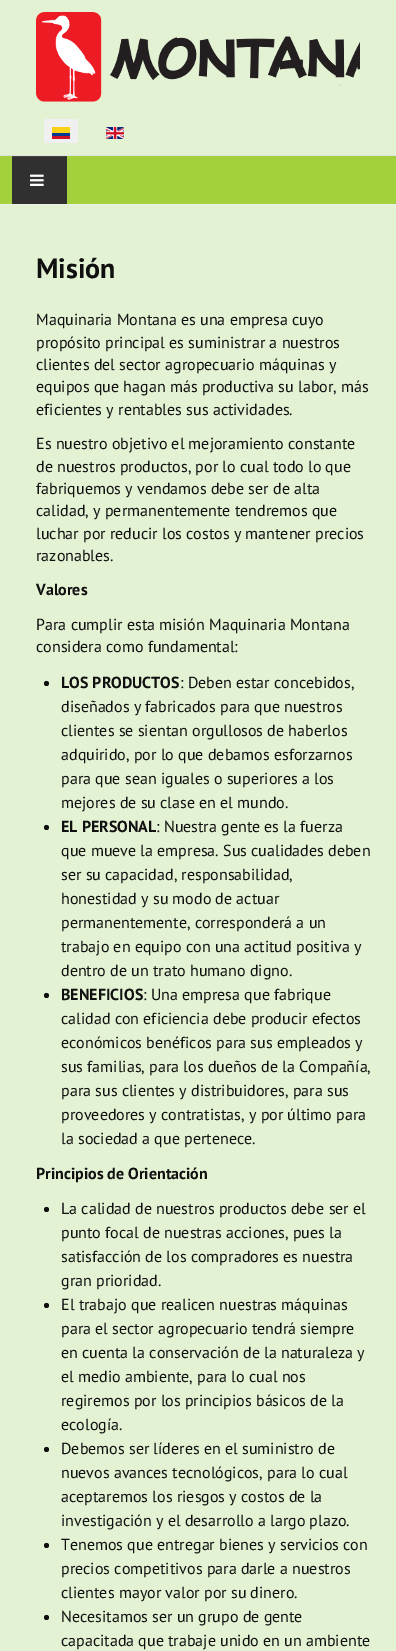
%!PS
<< /PageSize [396 1651] >> setpagedevice
/rgb { 3 { 255 div 3 1 roll } repeat setrgbcolor } def
/font { [ exch dup neg 0 0 3 -1 roll 0 0 ] selectfont } def
/circle { newpath 0 360 arc closepath } def
/picture { 5 dict begin { /h /w /y /x /name } { exch def } forall
  gsave x y translate w h scale
  w h 8 [w 0 0 h 0 0] name (r) file false 3 colorimage grestore end } def
0 1651 translate 1 -1 scale
4 setmiterlimit
228 242 212 rgb
0 0 396 1651 rectfill
224 224 224 rgb
0 155 396 1 rectfill
(img/1.rgb) 36 12 324 90 picture
240 240 240 rgb
44 119 34 24 rectfill
(img/2.rgb) 52 127 18 12 picture
(img/3.rgb) 106 127 18 12 picture
[
  [0 156 396 48 163 209 60]
  [0 204 396 1 238 238 238]
  [12 157 55 47 48 48 48]
  [12 156 55 1 69 69 69]
] { aload pop rgb rectfill } forall
(img/4.rgb) 30 174 14 12 picture
16 16 16 rgb
46.5 683.5 2.5 circle fill
46.5 827.5 2.5 circle fill
46.5 995.5 2.5 circle fill
46.5 1209.5 2.5 circle fill
46.5 1305.5 2.5 circle fill
46.5 1449.5 2.5 circle fill
46.5 1545.5 2.5 circle fill
46.5 1617.5 2.5 circle fill
/PTSans-Bold 28 font
36 278 moveto (Misión) show
/PTSans-Regular 16 font
[
  [(Maquinaria Montana es una empresa cuyo) 36 325]
  [(propósito principal es suministrar a nuestros) 36 348]
  [(clientes del sector agropecuario máquinas y) 36 370]
  [(equipos que hagan más productiva su labor, más) 36 392]
  [(eficientes y rentables sus actividades.) 36 415]
  [(Es nuestro objetivo el mejoramiento constante) 36 449]
  [(de nuestros productos, por lo cual todo lo que) 36 472]
  [(fabriquemos y vendamos debe ser de alta) 36 494]
  [(calidad, y permanentemente tendremos que) 36 516]
  [(luchar por reducir los costos y mantener precios) 36 539]
  [(razonables.) 36 561]
] { aload pop moveto show } forall
/PTSans-Bold 16 font
36 595 moveto (Valores) show
/PTSans-Regular 16 font
36 630 moveto (Para cumplir esta misión Maquinaria Montana) show
36 652 moveto (considera como fundamental:) show
/PTSans-Bold 16 font
61 688 moveto (LOS PRODUCTOS) show
/PTSans-Regular 16 font
[
  [(: Deben estar concebidos,) 180 688]
  [(diseñados y fabricados para que nuestros) 61 712]
  [(clientes se sientan orgullosos de haberlos) 61 736]
  [(adquirido, por lo que debamos esforzarnos) 61 760]
  [(para que sean iguales o superiores a los) 61 784]
  [(mejores de su clase en el mundo.) 61 808]
] { aload pop moveto show } forall
/PTSans-Bold 16 font
61 832 moveto (EL PERSONAL) show
/PTSans-Regular 16 font
[
  [(: Nuestra gente es la fuerza) 156 832]
  [(que mueve la empresa. Sus cualidades deben) 61 856]
  [(ser su capacidad, responsabilidad,) 61 880]
  [(honestidad y su modo de actuar) 61 904]
  [(permanentemente, corresponderá a un) 61 928]
  [(trabajo en equipo con una actitud positiva y) 61 952]
  [(dentro de un trato humano digno.) 61 976]
] { aload pop moveto show } forall
/PTSans-Bold 16 font
61 1000 moveto (BENEFICIOS) show
/PTSans-Regular 16 font
[
  [(: Una empresa que fabrique) 143 1000]
  [(calidad con eficiencia debe producir efectos) 61 1024]
  [(económicos benéficos para sus empleados y) 61 1048]
  [(sus familias, para los dueños de la Compañía,) 61 1072]
  [(para sus clientes y distribuidores, para sus) 61 1096]
  [(proveedores y contratistas, y por último para) 61 1120]
  [(la sociedad a que pertenece.) 61 1144]
] { aload pop moveto show } forall
/PTSans-Bold 16 font
36 1179 moveto (Principios de Orientación) show
/PTSans-Regular 16 font
[
  [(La calidad de nuestros productos debe ser el) 61 1214]
  [(punto focal de nuestras acciones, pues la) 61 1238]
  [(satisfacción de los compradores es nuestra) 61 1262]
  [(gran prioridad.) 61 1286]
  [(El trabajo que realicen nuestras máquinas) 61 1310]
  [(para el sector agropecuario tendrá siempre) 61 1334]
  [(en cuenta la conservación de la naturaleza y) 61 1358]
  [(el medio ambiente, para lo cual nos) 61 1382]
  [(regiremos por los principios básicos de la) 61 1406]
  [(ecología.) 61 1430]
  [(Debemos ser líderes en el suministro de) 61 1454]
  [(nuevos avances tecnológicos, para lo cual) 61 1478]
  [(aceptaremos los riesgos y costos de la) 61 1502]
  [(investigación y el desarrollo a largo plazo.) 61 1526]
  [(Tenemos que entregar bienes y servicios con) 61 1550]
  [(precios competitivos para darle a nuestros) 61 1574]
  [(clientes mayor valor por su dinero.) 61 1598]
  [(Necesitamos ser un grupo de gente) 61 1622]
  [(capacitada que trabaje unido en un ambiente) 61 1646]
] { aload pop moveto show } forall
showpage
